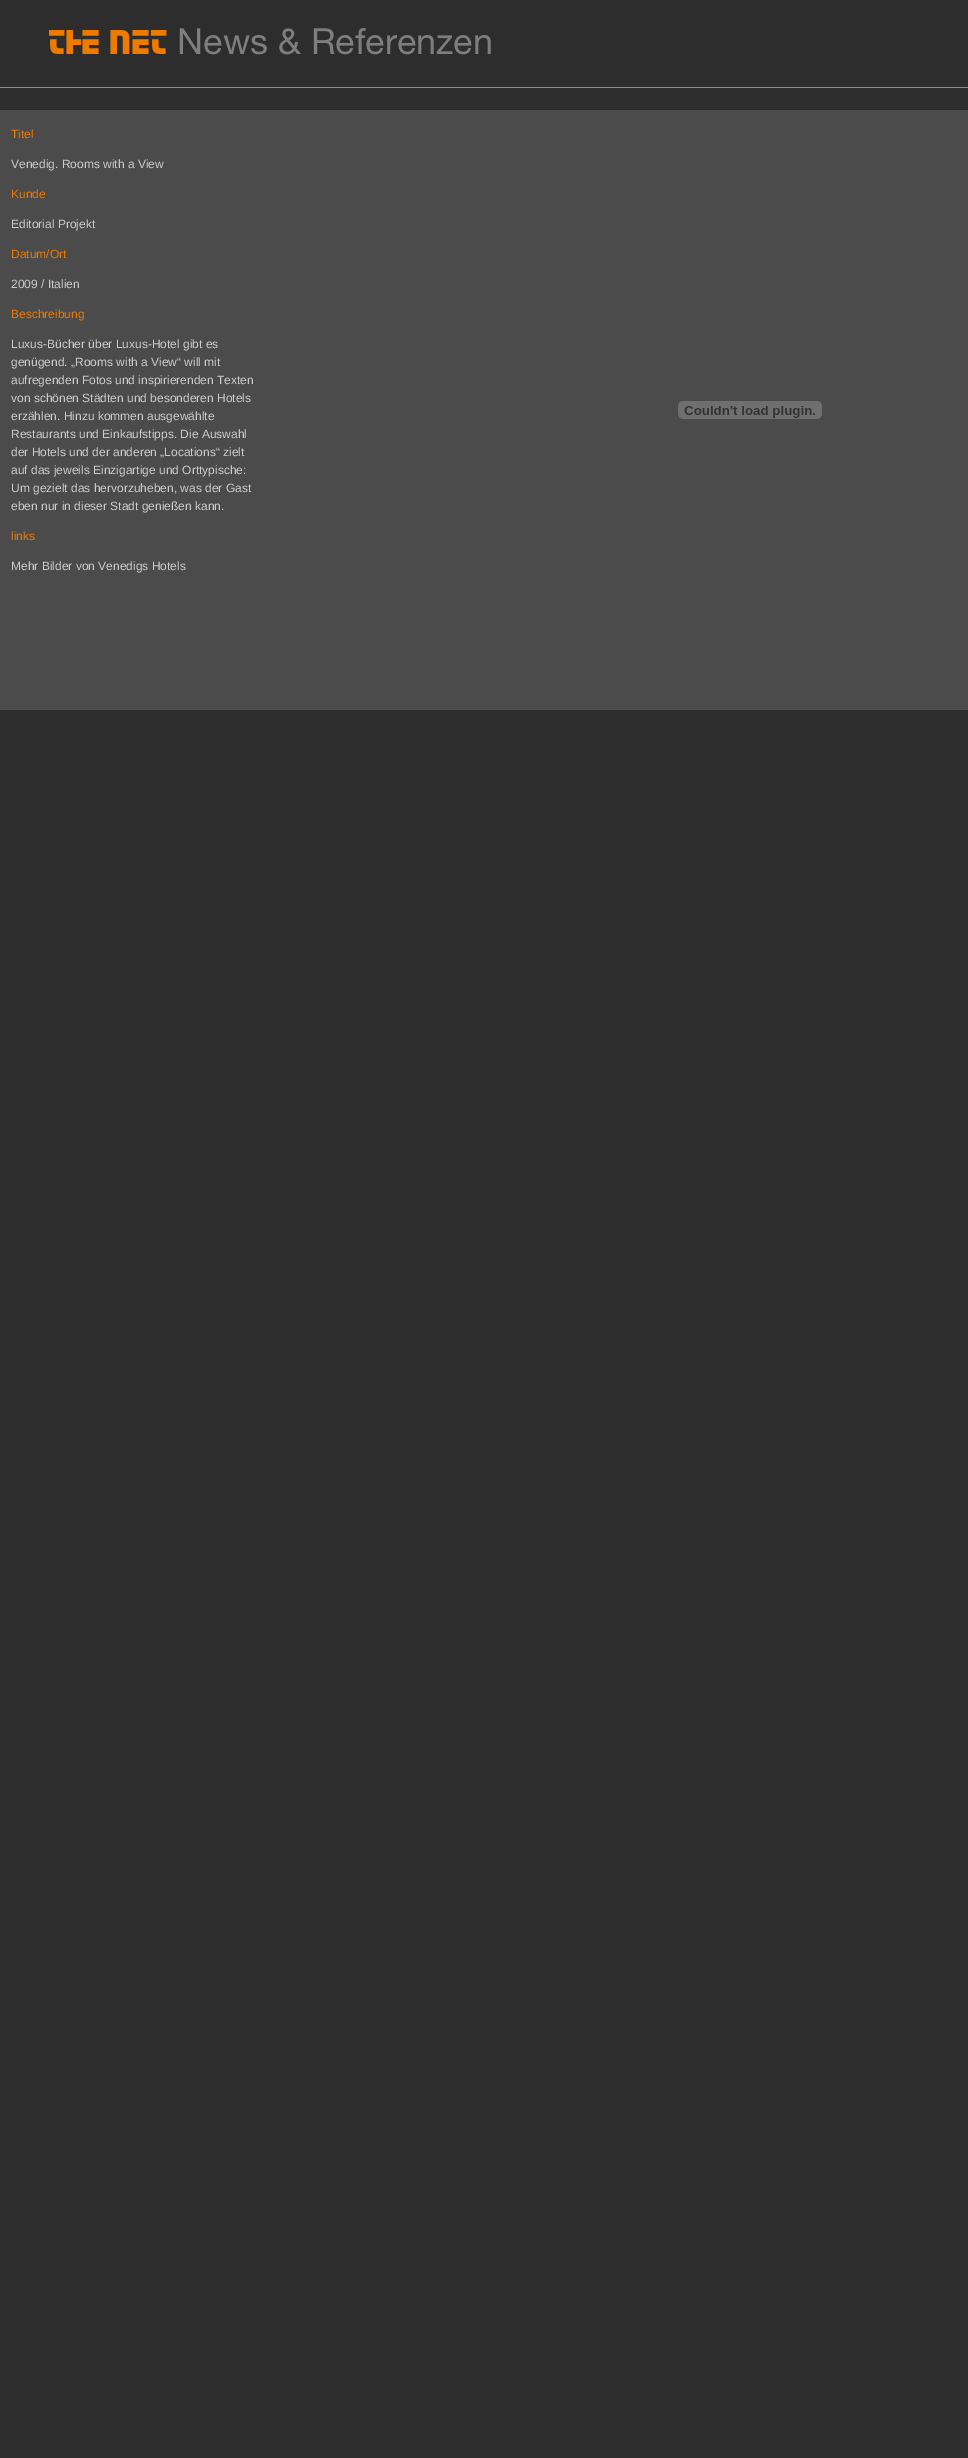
%!PS
<< /PageSize [968 2458] >> setpagedevice
/rgb { 3 { 255 div 3 1 roll } repeat setrgbcolor } def
/font { [ exch dup neg 0 0 3 -1 roll 0 0 ] selectfont } def
/picture { 5 dict begin { /h /w /y /x /name } { exch def } forall
  gsave x y translate w h scale
  w h 8 [w 0 0 h 0 0] name (r) file false 3 colorimage grestore end } def
0 2458 translate 1 -1 scale
4 setmiterlimit
45 45 45 rgb
0 0 968 2458 rectfill
(img/1.rgb) 48 28 443 27 picture
238 122 0 rgb
0 87 968 1 rectfill
75 75 75 rgb
0 110 968 600 rectfill
(img/2.rgb) 678 401 144 18 picture
/LiberationSans-Regular 12 font
238 122 0 rgb
11 138 moveto (Titel) show
204 204 204 rgb
11 168 moveto (Venedig. Rooms with a View) show
238 122 0 rgb
11 198 moveto (Kunde) show
204 204 204 rgb
11 228 moveto (Editorial Projekt) show
238 122 0 rgb
11 258 moveto (Datum/Ort) show
204 204 204 rgb
11 288 moveto (2009 / Italien) show
238 122 0 rgb
11 318 moveto (Beschreibung) show
204 204 204 rgb
[
  [(Luxus-Bücher über Luxus-Hotel gibt es) 11 348]
  [(genügend. „Rooms with a View“ will mit) 11 366]
  [(aufregenden Fotos und inspirierenden Texten) 11 384]
  [(von schönen Städten und besonderen Hotels) 11 402]
  [(erzählen. Hinzu kommen ausgewählte) 11 420]
  [(Restaurants und Einkaufstipps. Die Auswahl) 11 438]
  [(der Hotels und der anderen „Locations“ zielt) 11 456]
  [(auf das jeweils Einzigartige und Orttypische:) 11 474]
  [(Um gezielt das hervorzuheben, was der Gast) 11 492]
  [(eben nur in dieser Stadt genießen kann.) 11 510]
] { aload pop moveto show } forall
238 122 0 rgb
11 540 moveto (links) show
204 204 204 rgb
11 570 moveto (Mehr Bilder von Venedigs Hotels) show
showpage
